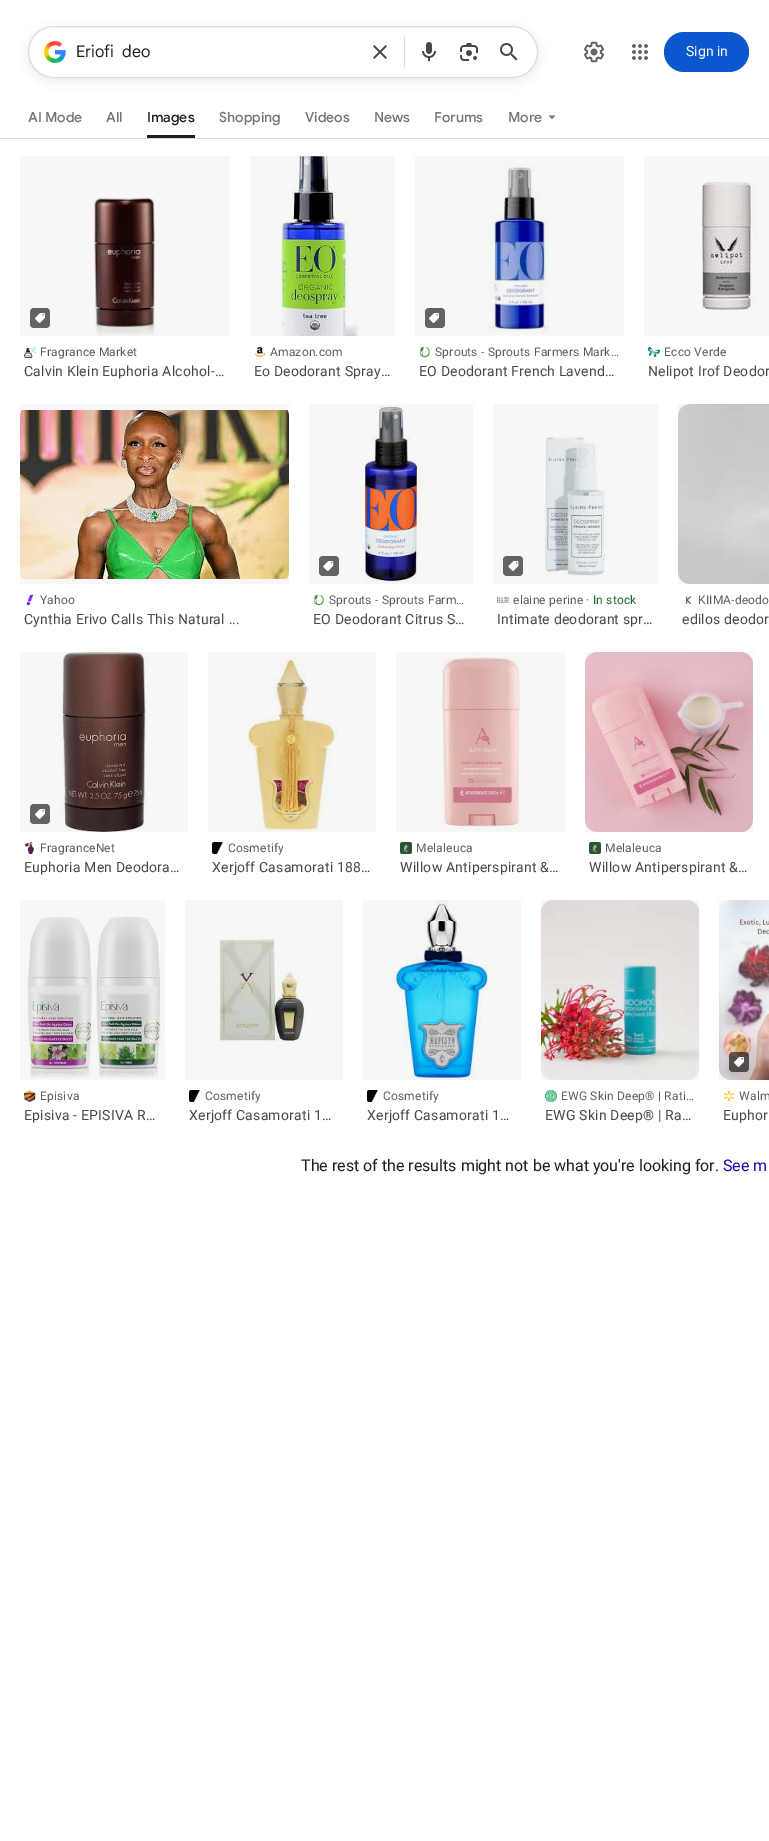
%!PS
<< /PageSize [769 1841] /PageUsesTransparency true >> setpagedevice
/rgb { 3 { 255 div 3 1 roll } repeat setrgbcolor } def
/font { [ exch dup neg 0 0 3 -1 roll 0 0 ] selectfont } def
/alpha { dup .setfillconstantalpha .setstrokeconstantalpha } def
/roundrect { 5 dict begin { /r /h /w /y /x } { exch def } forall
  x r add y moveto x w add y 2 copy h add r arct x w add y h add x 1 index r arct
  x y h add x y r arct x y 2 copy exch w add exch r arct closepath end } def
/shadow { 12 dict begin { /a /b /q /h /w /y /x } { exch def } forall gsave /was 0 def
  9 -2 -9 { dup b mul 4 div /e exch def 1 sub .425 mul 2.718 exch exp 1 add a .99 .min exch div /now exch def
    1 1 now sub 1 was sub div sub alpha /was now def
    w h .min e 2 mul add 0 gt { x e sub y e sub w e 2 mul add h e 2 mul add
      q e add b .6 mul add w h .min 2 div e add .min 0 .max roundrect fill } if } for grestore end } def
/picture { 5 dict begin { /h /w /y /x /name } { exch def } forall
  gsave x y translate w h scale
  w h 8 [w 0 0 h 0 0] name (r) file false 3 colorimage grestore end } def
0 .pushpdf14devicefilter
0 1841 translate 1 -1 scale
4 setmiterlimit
255 255 255 rgb
0 0 769 1841 rectfill
31 31 31 rgb
28 29 510 52 26 5 0.08 shadow
255 255 255 rgb
28.5 26.5 509 51 25.5 roundrect gsave fill grestore
218 220 224 rgb
stroke
(img/1.rgb) 44 41 22 22 picture
(img/2.rgb) 373 45 14 14 picture
404 36 1 32 rectfill
(img/3.rgb) 422 42 14 19 picture
(img/4.rgb) 460 43 18 18 picture
(img/5.rgb) 500 43 18 18 picture
(img/6.rgb) 584 41 20 22 picture
(img/7.rgb) 632 44 16 16 picture
11 87 208 rgb
664 32 85 40 20 roundrect fill
31 31 31 rgb
147 135 48 3 rectfill
112 117 122 rgb
548.5 115.5 moveto 552 119 lineto 555.5 115.5 lineto closepath fill
218 220 224 rgb
0 138 769 1 rectfill
(img/8.rgb) 94 197 61 139 picture
0.03 alpha
0 0 0 rgb
20 156 210 180 rectfill
1 alpha
99 99 99 rgb
30 308 20 20 4 roundrect fill
(img/9.rgb) 35 313 10 10 picture
(img/10.rgb) 24 346 12 12 picture
(img/11.rgb) 280 156 79 180 picture
0.03 alpha
0 0 0 rgb
250 156 145 180 rectfill
1 alpha
(img/12.rgb) 254 346 12 12 picture
(img/13.rgb) 488 162 62 172 picture
0.03 alpha
415 156 209 180 rectfill
1 alpha
99 99 99 rgb
425 308 20 20 4 roundrect fill
(img/9.rgb) 429 313 10 10 picture
(img/14.rgb) 419 346 12 12 picture
(img/15.rgb) 702 182 56 128 picture
0.03 alpha
0 0 0 rgb
644 156 125 180 rectfill
1 alpha
(img/16.rgb) 648 346 12 12 picture
(img/17.rgb) 20 410 269 169 picture
0.03 alpha
20 404 269 180 rectfill
1 alpha
(img/18.rgb) 26 594 8 12 picture
(img/19.rgb) 364 406 59 177 picture
0.03 alpha
309 404 164 180 rectfill
1 alpha
99 99 99 rgb
319 556 20 20 4 roundrect fill
(img/20.rgb) 323 561 11 10 picture
(img/21.rgb) 313 594 12 12 picture
(img/22.rgb) 543 436 64 141 picture
0.03 alpha
0 0 0 rgb
493 404 165 180 rectfill
1 alpha
99 99 99 rgb
503 556 20 20 4 roundrect fill
(img/23.rgb) 508 561 11 10 picture
(img/24.rgb) 497 597 12 6 picture
(img/25.rgb) 678 404 91 180 picture
0.03 alpha
0 0 0 rgb
678 404 91 180 rectfill
1 alpha
(img/26.rgb) 685 596 6 8 picture
(img/27.rgb) 59 652 89 180 picture
0.03 alpha
20 652 168 180 rectfill
1 alpha
99 99 99 rgb
30 804 20 20 4 roundrect fill
(img/9.rgb) 35 809 10 10 picture
(img/28.rgb) 24 842 10 12 picture
(img/29.rgb) 241 652 97 180 picture
0.03 alpha
0 0 0 rgb
208 652 168 180 rectfill
1 alpha
(img/30.rgb) 212 842 11 12 picture
(img/31.rgb) 442 652 78 179 picture
0.03 alpha
396 652 169 180 rectfill
1 alpha
(img/32.rgb) 400 842 12 12 picture
(img/33.rgb) 585 652 168 180 picture
0.03 alpha
585 652 168 180 rectfill
1 alpha
(img/32.rgb) 589 842 12 12 picture
(img/34.rgb) 27 916 137 162 picture
0.03 alpha
20 900 145 180 rectfill
1 alpha
(img/35.rgb) 24 1090 12 12 picture
(img/36.rgb) 217 938 90 104 picture
0.03 alpha
185 900 158 180 rectfill
1 alpha
(img/37.rgb) 189 1090 11 12 picture
(img/38.rgb) 391 900 97 180 picture
0.03 alpha
363 900 158 180 rectfill
1 alpha
(img/39.rgb) 367 1090 11 12 picture
(img/40.rgb) 541 900 158 180 picture
0.03 alpha
541 900 158 180 rectfill
1 alpha
(img/41.rgb) 545 1090 12 12 picture
(img/42.rgb) 719 900 50 180 picture
0.03 alpha
719 900 50 180 rectfill
0.6 alpha
729 1052 20 20 4 roundrect fill
1 alpha
(img/43.rgb) 734 1057 10 10 picture
(img/44.rgb) 724 1090 10 12 picture
/GoogleSans-Regular 16 font
31 31 31 rgb
76 57 moveto (Eriofi  deo) show
/Roboto-Regular 14 font
255 255 255 rgb
686 56 moveto (Sign in) show
/GoogleSans-Medium 14 font
112 117 122 rgb
28 122 moveto (AI Mode) show
106 122 moveto (All) show
31 31 31 rgb
147 122 moveto (Images) show
112 117 122 rgb
[
  [(Shopping) 219 122]
  [(Videos) 305 122]
  [(News) 374 122]
  [(Forums) 434 122]
  [(More) 508 122]
] { aload pop moveto show } forall
/Roboto-Regular 12 font
94 94 94 rgb
40 356 moveto 0.2 0 (Fragrance Market) ashow
/Roboto-Regular 14 font
71 71 71 rgb
24 376 moveto 0.2 0 (Calvin Klein Euphoria Alcohol-…) ashow
/Roboto-Regular 12 font
94 94 94 rgb
270 356 moveto 0.2 0 (Amazon.com) ashow
/Roboto-Regular 14 font
71 71 71 rgb
254 376 moveto 0.2 0 (Eo Deodorant Spray…) ashow
/Roboto-Regular 12 font
94 94 94 rgb
435 356 moveto 0.2 0 (Sprouts - Sprouts Farmers Mark…) ashow
/Roboto-Regular 14 font
71 71 71 rgb
419 376 moveto 0.2 0 (EO Deodorant French Lavend…) ashow
/Roboto-Regular 12 font
94 94 94 rgb
664 356 moveto 0.2 0 (Ecco Verde) ashow
/Roboto-Regular 14 font
71 71 71 rgb
648 376 moveto 0.2 0 (Nelipot Irof Deodor) ashow
/Roboto-Regular 12 font
94 94 94 rgb
40 604 moveto 0.2 0 (Yahoo) ashow
/Roboto-Regular 14 font
71 71 71 rgb
24 624 moveto 0.2 0 (Cynthia Erivo Calls This Natural ...) ashow
/Roboto-Regular 12 font
94 94 94 rgb
329 604 moveto 0.2 0 (Sprouts - Sprouts Farm…) ashow
/Roboto-Regular 14 font
71 71 71 rgb
313 624 moveto 0.2 0 (EO Deodorant Citrus S…) ashow
/Roboto-Regular 12 font
94 94 94 rgb
513 604 moveto 0.2 0 (elaine perine ·) ashow
20 108 46 rgb
593 604 moveto 0.2 0 (In stock) ashow
/Roboto-Regular 14 font
71 71 71 rgb
497 624 moveto 0.2 0 (Intimate deodorant spr…) ashow
/Roboto-Regular 12 font
94 94 94 rgb
698 604 moveto 0.2 0 (KIIMA-deodo) ashow
/Roboto-Regular 14 font
71 71 71 rgb
682 624 moveto 0.2 0 (edilos deodor) ashow
/Roboto-Regular 12 font
94 94 94 rgb
40 852 moveto 0.2 0 (FragranceNet) ashow
/Roboto-Regular 14 font
71 71 71 rgb
24 872 moveto 0.2 0 (Euphoria Men Deodora…) ashow
/Roboto-Regular 12 font
94 94 94 rgb
228 852 moveto 0.2 0 (Cosmetify) ashow
/Roboto-Regular 14 font
71 71 71 rgb
212 872 moveto 0.2 0 (Xerjoff Casamorati 188…) ashow
/Roboto-Regular 12 font
94 94 94 rgb
416 852 moveto 0.2 0 (Melaleuca) ashow
/Roboto-Regular 14 font
71 71 71 rgb
400 872 moveto 0.2 0 (Willow Antiperspirant &…) ashow
/Roboto-Regular 12 font
94 94 94 rgb
605 852 moveto 0.2 0 (Melaleuca) ashow
/Roboto-Regular 14 font
71 71 71 rgb
589 872 moveto 0.2 0 (Willow Antiperspirant &…) ashow
/Roboto-Regular 12 font
94 94 94 rgb
40 1100 moveto 0.2 0 (Episiva) ashow
/Roboto-Regular 14 font
71 71 71 rgb
24 1120 moveto 0.2 0 (Episiva - EPISIVA R…) ashow
/Roboto-Regular 12 font
94 94 94 rgb
205 1100 moveto 0.2 0 (Cosmetify) ashow
/Roboto-Regular 14 font
71 71 71 rgb
189 1120 moveto 0.2 0 (Xerjoff Casamorati 1…) ashow
/Roboto-Regular 12 font
94 94 94 rgb
383 1100 moveto 0.2 0 (Cosmetify) ashow
/Roboto-Regular 14 font
71 71 71 rgb
367 1120 moveto 0.2 0 (Xerjoff Casamorati 1…) ashow
/Roboto-Regular 12 font
94 94 94 rgb
561 1100 moveto 0.2 0 (EWG Skin Deep® | Rati…) ashow
/Roboto-Regular 14 font
71 71 71 rgb
545 1120 moveto 0.2 0 (EWG Skin Deep® | Ra…) ashow
/Roboto-Regular 12 font
94 94 94 rgb
739 1100 moveto 0.2 0 (Walm) ashow
/Roboto-Regular 14 font
71 71 71 rgb
723 1120 moveto 0.2 0 (Euphor) ashow
/Roboto-Regular 16 font
31 31 31 rgb
301 1171 moveto (The rest of the results might not be what you're looking for.) show
26 13 171 rgb
723 1171 moveto (See m) show
.poppdf14devicefilter showpage
